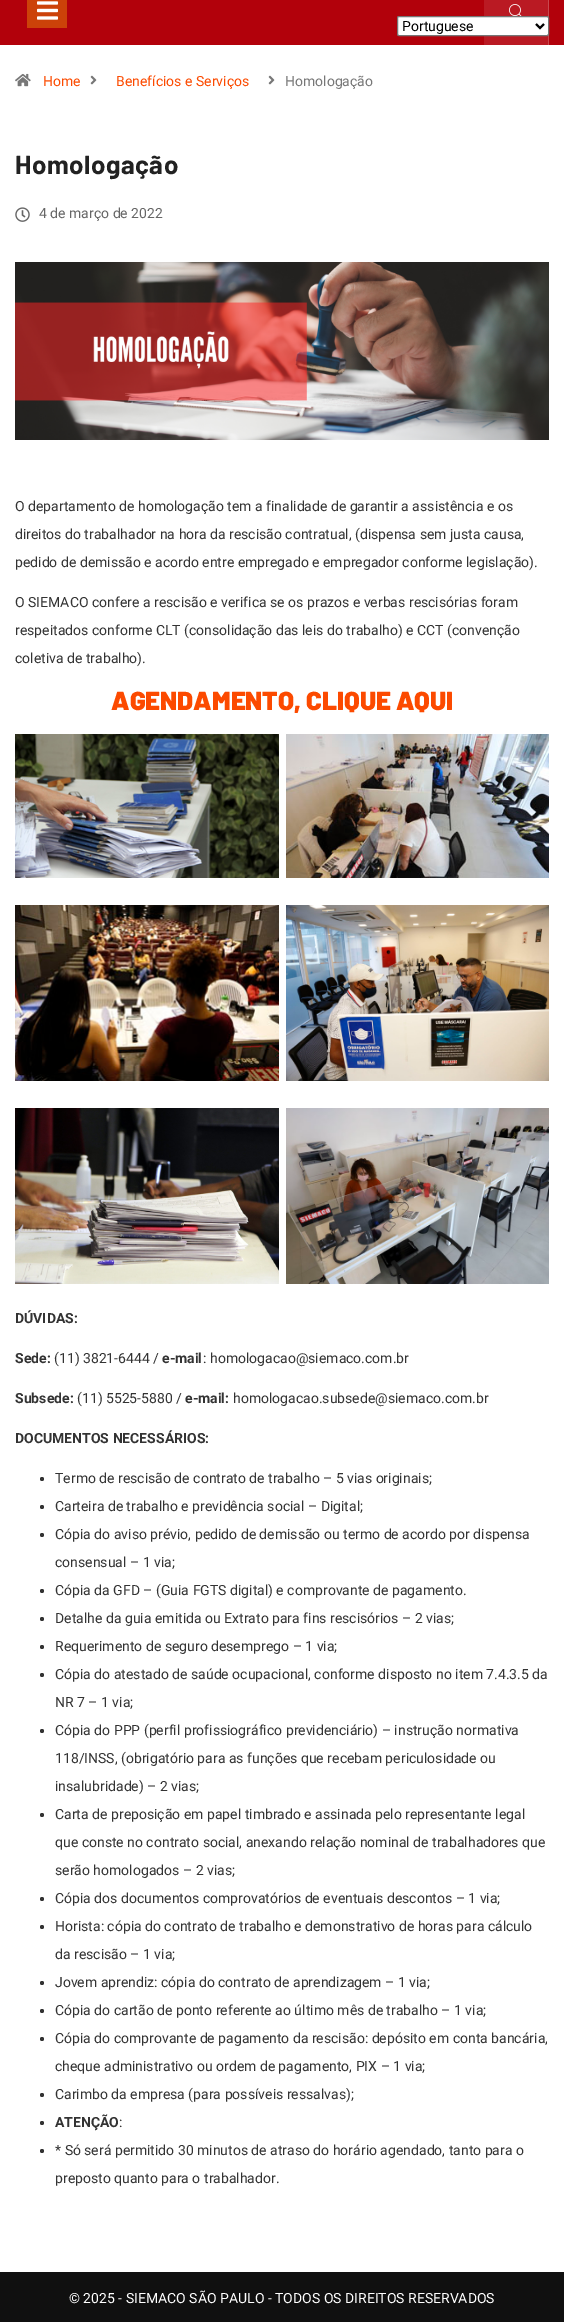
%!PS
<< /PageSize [564 2322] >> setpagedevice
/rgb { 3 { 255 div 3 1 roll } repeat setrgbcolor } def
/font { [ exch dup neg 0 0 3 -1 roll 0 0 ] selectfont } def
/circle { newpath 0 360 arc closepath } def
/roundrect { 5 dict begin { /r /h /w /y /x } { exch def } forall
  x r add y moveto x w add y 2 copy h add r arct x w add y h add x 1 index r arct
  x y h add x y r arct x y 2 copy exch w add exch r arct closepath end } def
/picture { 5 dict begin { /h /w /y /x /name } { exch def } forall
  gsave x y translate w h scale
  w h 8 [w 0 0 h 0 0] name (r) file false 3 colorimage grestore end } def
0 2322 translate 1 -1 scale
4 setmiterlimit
255 255 255 rgb
0 0 564 2322 rectfill
[
  [0 0 564 45 178 1 11]
  [484 0 64 45 186 26 35]
  [548 0 1 45 200 72 79]
] { aload pop rgb rectfill } forall
255 255 255 rgb
397.5 16.5 151 19 1.5 roundrect gsave fill grestore
118 118 118 rgb
stroke
0 0 0 rgb
2 setlinewidth
536 24 moveto 540 28 lineto 544 24 lineto stroke
204 66 9 rgb
27 0 40 28 rectfill
(img/1.rgb) 37 1 21 19 picture
(img/2.rgb) 509 4 13 12 picture
(img/3.rgb) 15 73 16 14 picture
(img/4.rgb) 90 75 7 10 picture
(img/4.rgb) 268 75 7 10 picture
(img/5.rgb) 15 207 15 15 picture
(img/6.rgb) 15 262 534 178 picture
(img/7.rgb) 15 734 264 144 picture
(img/8.rgb) 286 734 263 144 picture
(img/9.rgb) 15 905 264 176 picture
(img/10.rgb) 286 905 263 176 picture
(img/11.rgb) 15 1108 264 176 picture
(img/12.rgb) 286 1108 263 176 picture
51 51 51 rgb
42 1479 2 circle fill
42 1507 2 circle fill
42 1535 2 circle fill
42 1591 2 circle fill
42 1619 2 circle fill
42 1647 2 circle fill
42 1675 2 circle fill
42 1731 2 circle fill
42 1815 2 circle fill
42 1899 2 circle fill
42 1927 2 circle fill
42 1983 2 circle fill
42 2011 2 circle fill
42 2039 2 circle fill
42 2095 2 circle fill
42 2123 2 circle fill
42 2151 2 circle fill
16 16 16 rgb
0 2272 564 50 rectfill
/Roboto-Regular 14 font
0 0 0 rgb
402 31 moveto (Portuguese) show
252 74 0 rgb
43 86 moveto (Home) show
116 86 moveto (Benefícios e Serviços) show
119 119 119 rgb
285 86 moveto (Homologação) show
/Barlow-Bold 26 font
34 34 34 rgb
15 174 moveto 0.5 0 (Homologação) ashow
/Roboto-Regular 14 font
102 102 102 rgb
39 218 moveto (4 de março de 2022) show
51 51 51 rgb
[
  [(O departamento de homologação tem a finalidade de garantir a assistência e os) 15 511]
  [(direitos do trabalhador na hora da rescisão contratual, \(dispensa sem justa causa,) 15 539]
  [(pedido de demissão e acordo entre empregado e empregador conforme legislação\).) 15 567]
  [(O SIEMACO confere a rescisão e verifica se os prazos e verbas rescisórias foram) 15 607]
  [(respeitados conforme CLT \(consolidação das leis do trabalho\) e CCT \(convenção) 15 635]
  [(coletiva de trabalho\).) 15 663]
] { aload pop moveto show } forall
/Barlow-Black 26 font
252 74 0 rgb
111 710 moveto (AGENDAMENTO, CLIQUE AQUI) show
/Roboto-Bold 14 font
51 51 51 rgb
15 1323 moveto (DÚVIDAS:) show
15 1363 moveto (Sede:) show
/Roboto-Regular 14 font
54 1363 moveto (\(11\) 3821-6444 /) show
/Roboto-Bold 14 font
162 1363 moveto (e-mail) show
/Roboto-Regular 14 font
203 1363 moveto (: homologacao@siemaco.com.br) show
/Roboto-Bold 14 font
15 1403 moveto (Subsede:) show
/Roboto-Regular 14 font
77 1403 moveto (\(11\) 5525-5880 /) show
/Roboto-Bold 14 font
185 1403 moveto (e-mail:) show
/Roboto-Regular 14 font
233 1403 moveto (homologacao.subsede@siemaco.com.br) show
/Roboto-Bold 14 font
15 1443 moveto (DOCUMENTOS NECESSÁRIOS:) show
/Roboto-Regular 14 font
[
  [(Termo de rescisão de contrato de trabalho – 5 vias originais;) 55 1483]
  [(Carteira de trabalho e previdência social – Digital;) 55 1511]
  [(Cópia do aviso prévio, pedido de demissão ou termo de acordo por dispensa) 55 1539]
  [(consensual – 1 via;) 55 1567]
  [(Cópia da GFD – \(Guia FGTS digital\) e comprovante de pagamento.) 55 1595]
  [(Detalhe da guia emitida ou Extrato para fins rescisórios – 2 vias;) 55 1623]
  [(Requerimento de seguro desemprego – 1 via;) 55 1651]
  [(Cópia do atestado de saúde ocupacional, conforme disposto no item 7.4.3.5 da) 55 1679]
  [(NR 7 – 1 via;) 55 1707]
  [(Cópia do PPP \(perfil profissiográfico previdenciário\) – instrução normativa) 55 1735]
  [(118/INSS, \(obrigatório para as funções que recebam periculosidade ou) 55 1763]
  [(insalubridade\) – 2 vias;) 55 1791]
  [(Carta de preposição em papel timbrado e assinada pelo representante legal) 55 1819]
  [(que conste no contrato social, anexando relação nominal de trabalhadores que) 55 1847]
  [(serão homologados – 2 vias;) 55 1875]
  [(Cópia dos documentos comprovatórios de eventuais descontos – 1 via;) 55 1903]
  [(Horista: cópia do contrato de trabalho e demonstrativo de horas para cálculo) 55 1931]
  [(da rescisão – 1 via;) 55 1959]
  [(Jovem aprendiz: cópia do contrato de aprendizagem – 1 via;) 55 1987]
  [(Cópia do cartão de ponto referente ao último mês de trabalho – 1 via;) 55 2015]
  [(Cópia do comprovante de pagamento da rescisão: depósito em conta bancária,) 55 2043]
  [(cheque administrativo ou ordem de pagamento, PIX – 1 via;) 55 2071]
  [(Carimbo da empresa \(para possíveis ressalvas\);) 55 2099]
] { aload pop moveto show } forall
/Roboto-Bold 14 font
55 2127 moveto (ATENÇÃO) show
/Roboto-Regular 14 font
[
  [(:) 119 2127]
  [(* Só será permitido 30 minutos de atraso do horário agendado, tanto para o) 55 2155]
  [(preposto quanto para o trabalhador.) 55 2183]
] { aload pop moveto show } forall
255 255 255 rgb
69 2303 moveto (© 2025 - SIEMACO SÃO PAULO - TODOS OS DIREITOS RESERVADOS) show
showpage
